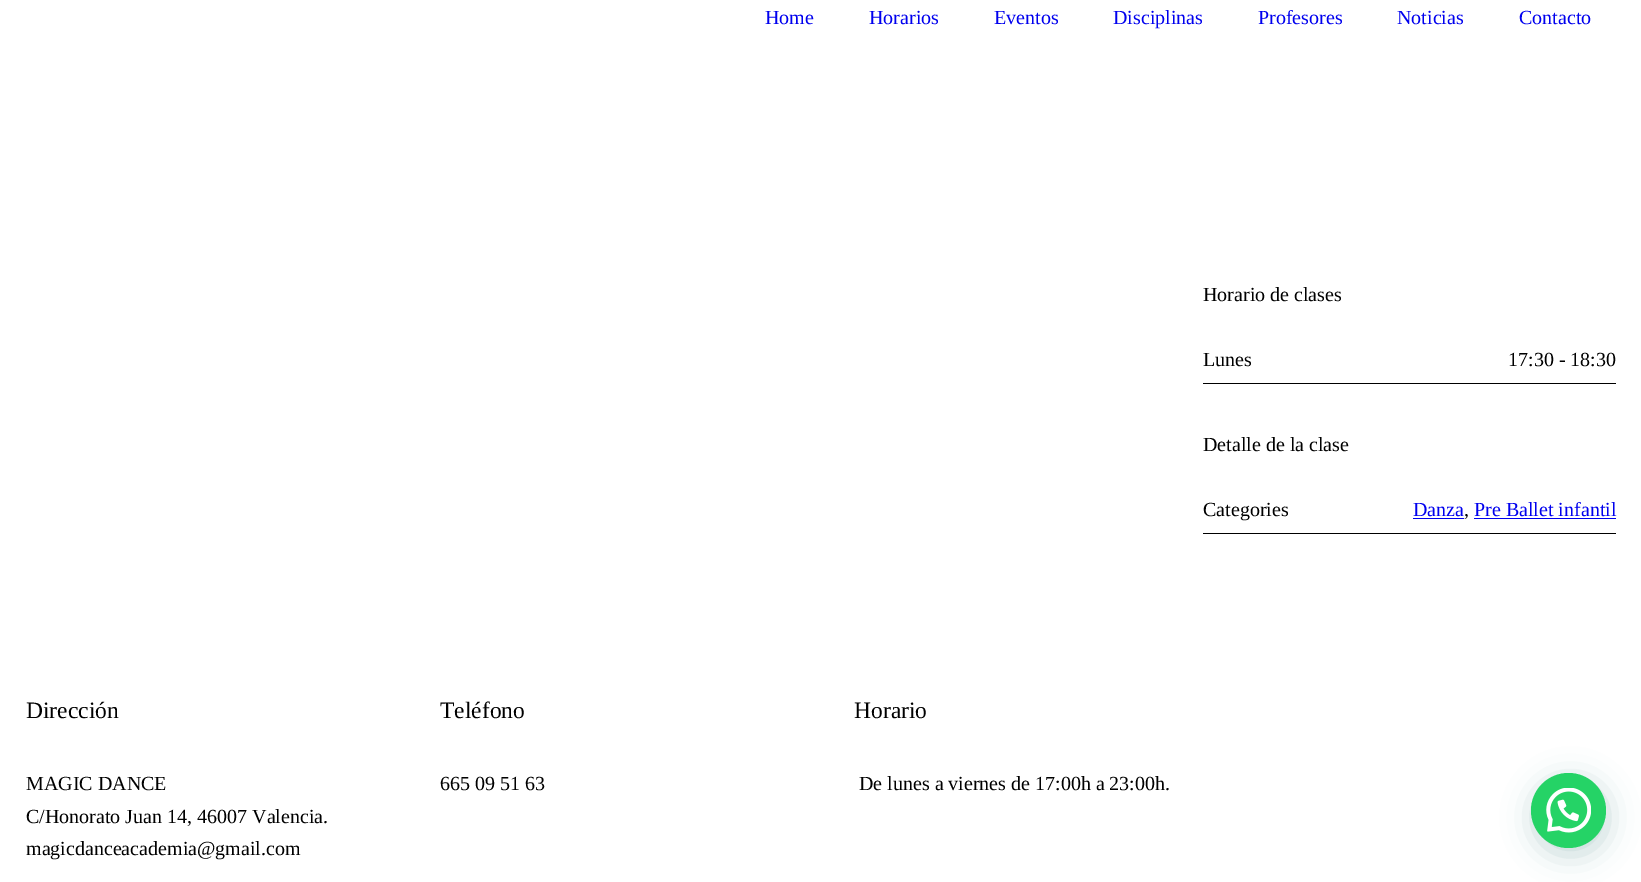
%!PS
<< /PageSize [1641 882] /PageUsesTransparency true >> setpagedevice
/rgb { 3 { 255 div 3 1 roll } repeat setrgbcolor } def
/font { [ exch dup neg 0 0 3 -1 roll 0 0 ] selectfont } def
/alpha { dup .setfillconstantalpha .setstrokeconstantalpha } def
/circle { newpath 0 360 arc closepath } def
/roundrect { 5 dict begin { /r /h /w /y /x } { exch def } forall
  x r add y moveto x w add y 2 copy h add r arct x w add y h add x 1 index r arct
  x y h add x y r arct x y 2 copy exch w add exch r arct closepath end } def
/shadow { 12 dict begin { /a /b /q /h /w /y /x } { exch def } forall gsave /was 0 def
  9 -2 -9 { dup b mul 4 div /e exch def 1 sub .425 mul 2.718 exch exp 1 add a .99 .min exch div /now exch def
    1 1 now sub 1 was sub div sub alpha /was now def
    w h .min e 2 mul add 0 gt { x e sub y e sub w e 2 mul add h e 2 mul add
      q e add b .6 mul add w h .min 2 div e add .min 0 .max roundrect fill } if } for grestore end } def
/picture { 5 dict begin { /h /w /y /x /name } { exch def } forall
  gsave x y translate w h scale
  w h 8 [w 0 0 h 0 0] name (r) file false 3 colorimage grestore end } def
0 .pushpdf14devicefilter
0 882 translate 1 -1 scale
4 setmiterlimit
255 255 255 rgb
0 0 1641 882 rectfill
[
  [1203 383 413 1 0 0 0]
  [1203 533 413 1 0 0 0]
  [1413 518 51 1 0 0 238]
  [1474 518 142 1 0 0 238]
] { aload pop rgb rectfill } forall
7 94 84 rgb
1533 780 75 75 37.5 15 0.24 shadow
37 211 102 rgb
1568.5 810.5 37.5 circle fill
(img/1.rgb) 1546 788 45 45 picture
/LiberationSerif-Regular 20 font
0 0 238 rgb
[
  [(Home) 765 24]
  [(Horarios) 869 24]
  [(Eventos) 994 24]
  [(Disciplinas) 1113 24]
  [(Profesores) 1258 24]
  [(Noticias) 1397 24]
  [(Contacto) 1519 24]
] { aload pop moveto show } forall
0 0 0 rgb
[
  [(Horario de clases) 1203 301]
  [(Lunes) 1203 366]
  [(17:30 - 18:30) 1508 366]
  [(Detalle de la clase) 1203 451]
  [(Categories) 1203 516]
] { aload pop moveto show } forall
0 0 238 rgb
1413 516 moveto (Danza) show
0 0 0 rgb
1464 516 moveto (,) show
0 0 238 rgb
1474 516 moveto (Pre Ballet infantil) show
/LiberationSerif-Regular 23.5 font
0 0 0 rgb
26 718 moveto (Dirección) show
/LiberationSerif-Regular 20 font
[
  [(MAGIC DANCE) 26 790]
  [(C/Honorato Juan 14, 46007 Valencia.) 26 823]
  [(magicdanceacademia@gmail.com) 26 855]
] { aload pop moveto show } forall
/LiberationSerif-Regular 23.5 font
440 718 moveto (Teléfono) show
/LiberationSerif-Regular 20 font
440 790 moveto (665 09 51 63) show
/LiberationSerif-Regular 23.5 font
854 718 moveto (Horario) show
/LiberationSerif-Regular 20 font
859 790 moveto (De lunes a viernes de 17:00h a 23:00h.) show
.poppdf14devicefilter showpage
